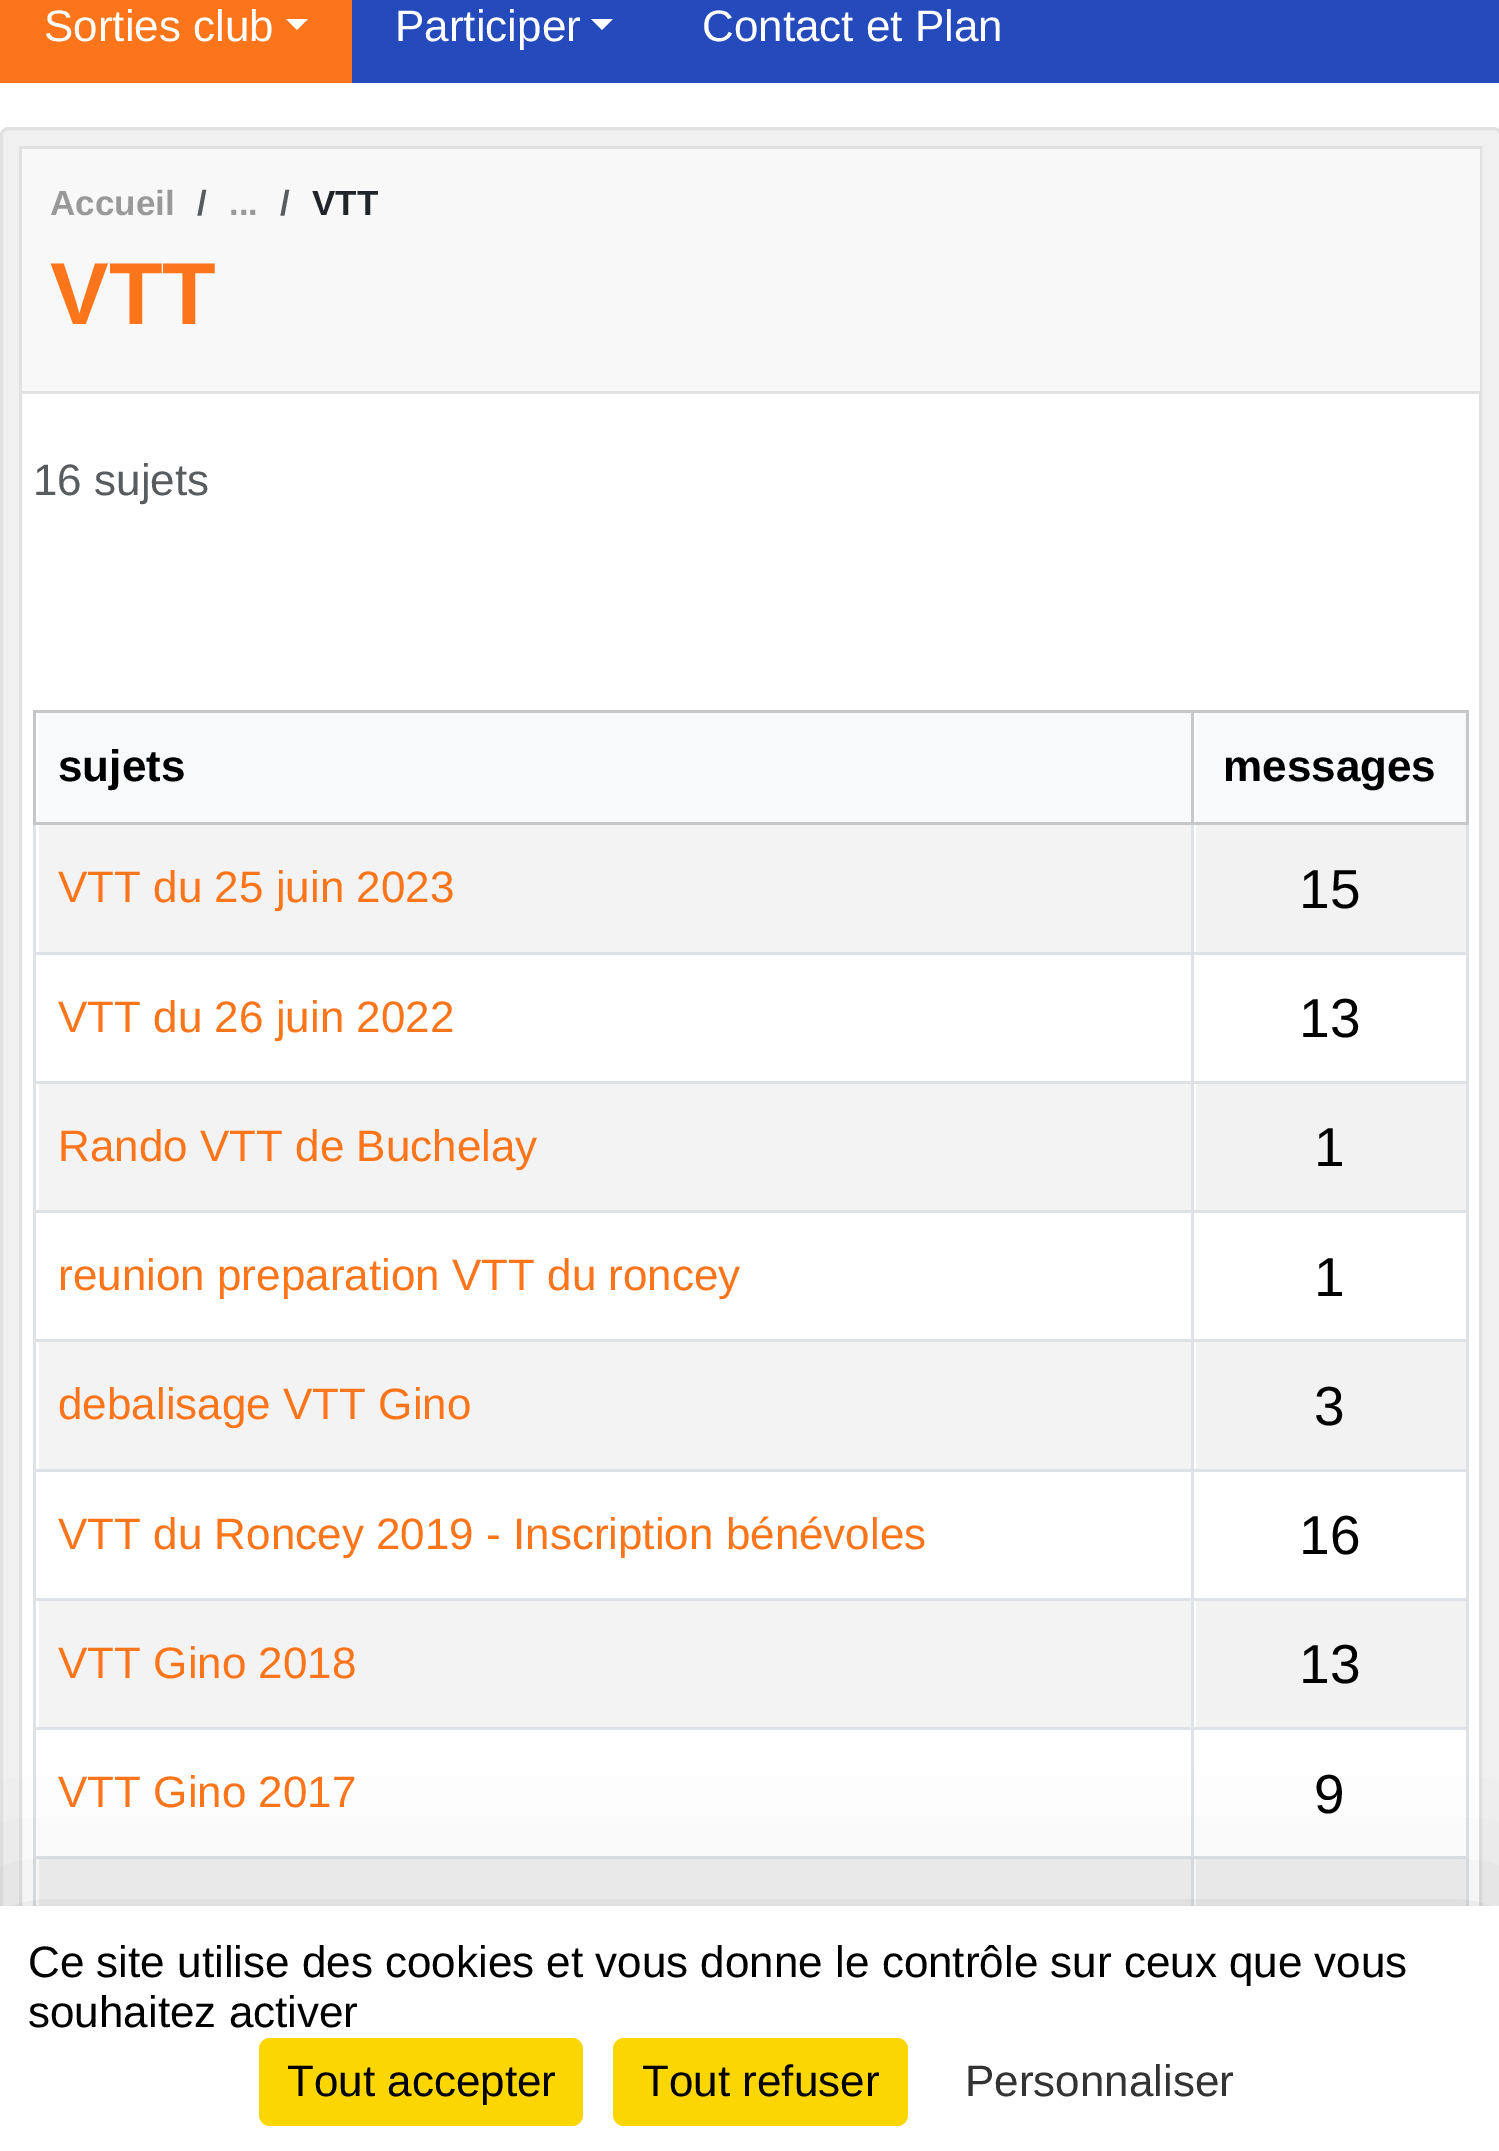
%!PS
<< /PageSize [1499 2151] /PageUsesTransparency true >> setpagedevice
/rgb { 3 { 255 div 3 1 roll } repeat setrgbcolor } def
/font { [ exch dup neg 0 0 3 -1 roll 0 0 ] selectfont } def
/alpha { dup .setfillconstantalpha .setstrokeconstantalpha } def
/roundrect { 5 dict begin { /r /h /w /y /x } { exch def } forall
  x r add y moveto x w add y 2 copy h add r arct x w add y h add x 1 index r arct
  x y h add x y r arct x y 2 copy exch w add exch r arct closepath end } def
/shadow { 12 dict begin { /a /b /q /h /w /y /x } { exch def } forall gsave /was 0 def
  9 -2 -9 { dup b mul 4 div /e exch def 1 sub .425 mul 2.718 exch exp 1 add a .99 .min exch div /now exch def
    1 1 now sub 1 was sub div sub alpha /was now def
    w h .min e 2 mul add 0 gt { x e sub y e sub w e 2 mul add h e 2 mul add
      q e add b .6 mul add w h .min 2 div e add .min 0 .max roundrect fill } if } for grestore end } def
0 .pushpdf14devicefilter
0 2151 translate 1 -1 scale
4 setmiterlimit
255 255 255 rgb
0 0 1499 2151 rectfill
37 74 187 rgb
352 0 1147 83 rectfill
252 117 27 rgb
0 0 352 83 rectfill
255 255 255 rgb
286 19 moveto 308 19 lineto 297 30 lineto closepath fill
591 19 moveto 613 19 lineto 602 30 lineto closepath fill
240 240 240 rgb
1.5 128.5 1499 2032 6.5 roundrect gsave fill grestore
225 225 225 rgb
3 setlinewidth
stroke
255 255 255 rgb
22 394 1457 1512 rectfill
225 225 225 rgb
20.5 147.5 1460 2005 rectstroke
[
  [22 149 1458 242 248 248 248]
  [22 391 1458 3 225 225 225]
  [33 710 1436 3 198 199 200]
  [33 822 1436 3 198 199 200]
  [39 713 1152 109 248 249 250]
  [33 1856 1436 3 222 226 230]
  [33 952 1436 3 222 226 230]
  [33 1081 1436 3 222 226 230]
  [33 1210 1436 3 222 226 230]
  [33 1339 1436 3 222 226 230]
  [33 1469 1436 3 222 226 230]
  [33 1598 1436 3 222 226 230]
  [33 1727 1436 3 222 226 230]
  [33 822 3 1084 222 226 230]
  [33 710 3 115 198 199 200]
  [1196 713 270 109 248 249 250]
  [1466 822 3 1084 222 226 230]
  [1466 710 3 115 198 199 200]
  [1191 822 3 1084 222 226 230]
  [1191 710 3 115 198 199 200]
  [39 1859 1152 47 243 243 243]
  [1196 1859 270 47 242 242 242]
  [39 825 1152 127 243 243 243]
  [1196 825 270 127 242 242 242]
  [39 1084 1152 126 243 243 243]
  [1196 1084 270 126 242 242 242]
  [39 1342 1152 127 243 243 243]
  [1196 1342 270 127 242 242 242]
  [39 1601 1152 126 243 243 243]
  [1196 1601 270 126 242 242 242]
] { aload pop rgb rectfill } forall
0 0 0 rgb
0 1961 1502 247 0 82.5 0.25 shadow
255 255 255 rgb
0 1906 1499 245 rectfill
251 214 0 rgb
259 2038 324 88 11 roundrect fill
613 2038 295 88 11 roundrect fill
/LiberationSans-Regular 44 font
255 255 255 rgb
[
  [(Sorties club) 44 41]
  [(Participer) 395 41]
  [(Contact et Plan) 702 41]
] { aload pop moveto show } forall
/LiberationSans-Bold 35 font
153 153 153 rgb
50 215 moveto (Accueil) show
89 92 95 rgb
197 215 moveto (/) show
153 153 153 rgb
229 215 moveto (...) show
89 92 95 rgb
280 215 moveto (/) show
33 37 41 rgb
312 215 moveto (VTT) show
/LiberationSans-Bold 88 font
252 117 27 rgb
50 324 moveto (VTT) show
/LiberationSans-Regular 44 font
89 92 95 rgb
33 495 moveto (16 sujets) show
/LiberationSans-Bold 44 font
0 0 0 rgb
58 781 moveto (sujets) show
1223 781 moveto (messages) show
/LiberationSans-Regular 44 font
252 117 27 rgb
58 902 moveto (VTT du 25 juin 2023) show
/LiberationSans-Regular 55 font
0 0 0 rgb
1299 908 moveto (15) show
/LiberationSans-Regular 44 font
252 117 27 rgb
58 1032 moveto (VTT du 26 juin 2022) show
/LiberationSans-Regular 55 font
0 0 0 rgb
1299 1037 moveto (13) show
/LiberationSans-Regular 44 font
252 117 27 rgb
58 1161 moveto (Rando VTT de Buchelay) show
/LiberationSans-Regular 55 font
0 0 0 rgb
1314 1166 moveto (1) show
/LiberationSans-Regular 44 font
252 117 27 rgb
58 1290 moveto (reunion preparation VTT du roncey) show
/LiberationSans-Regular 55 font
0 0 0 rgb
1314 1296 moveto (1) show
/LiberationSans-Regular 44 font
252 117 27 rgb
58 1419 moveto (debalisage VTT Gino) show
/LiberationSans-Regular 55 font
0 0 0 rgb
1314 1425 moveto (3) show
/LiberationSans-Regular 44 font
252 117 27 rgb
58 1549 moveto (VTT du Roncey 2019 - Inscription bénévoles) show
/LiberationSans-Regular 55 font
0 0 0 rgb
1299 1554 moveto (16) show
/LiberationSans-Regular 44 font
252 117 27 rgb
58 1678 moveto (VTT Gino 2018) show
/LiberationSans-Regular 55 font
0 0 0 rgb
1299 1683 moveto (13) show
/LiberationSans-Regular 44 font
252 117 27 rgb
58 1807 moveto (VTT Gino 2017) show
/LiberationSans-Regular 55 font
0 0 0 rgb
1314 1813 moveto (9) show
/LiberationSans-Regular 44 font
[
  [(Ce site utilise des cookies et vous donne le contrôle sur ceux que vous) 28 1977]
  [(souhaitez activer) 28 2027]
  [(Tout accepter) 287 2096]
  [(Tout refuser) 642 2096]
] { aload pop moveto show } forall
51 51 51 rgb
965 2096 moveto (Personnaliser) show
.poppdf14devicefilter showpage
